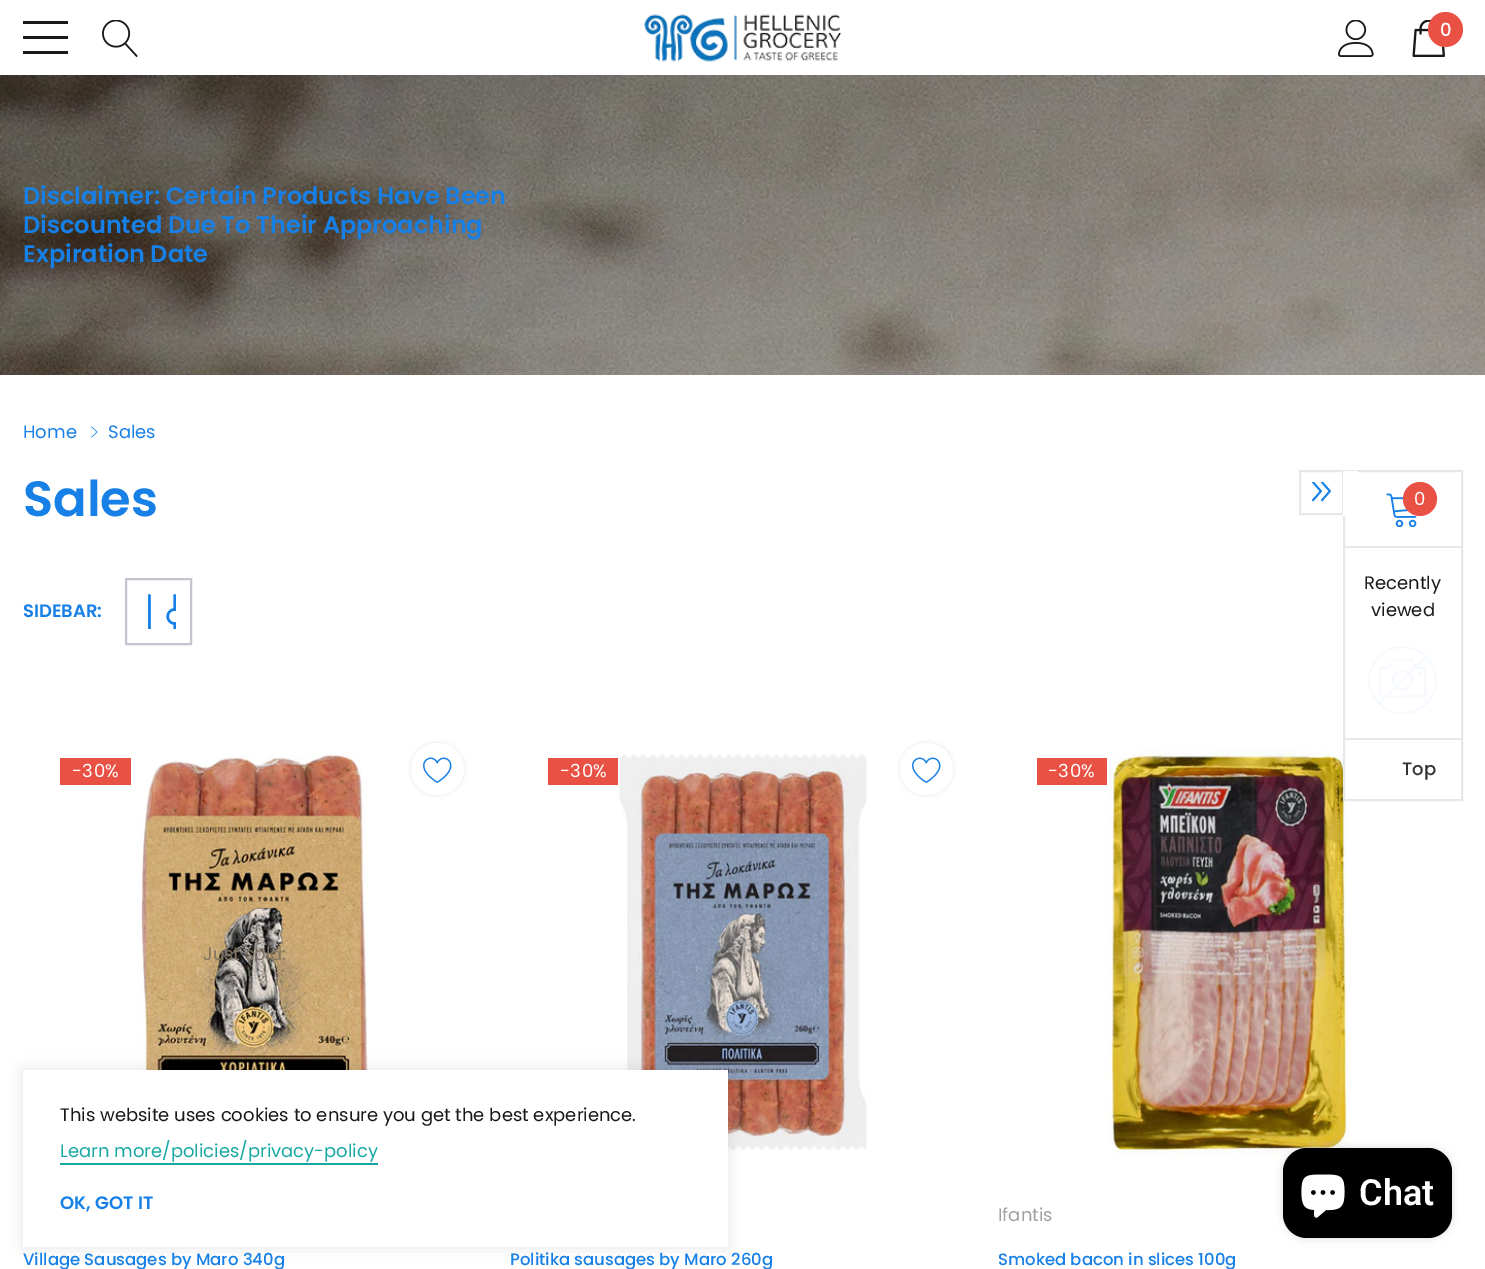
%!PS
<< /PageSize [1485 1269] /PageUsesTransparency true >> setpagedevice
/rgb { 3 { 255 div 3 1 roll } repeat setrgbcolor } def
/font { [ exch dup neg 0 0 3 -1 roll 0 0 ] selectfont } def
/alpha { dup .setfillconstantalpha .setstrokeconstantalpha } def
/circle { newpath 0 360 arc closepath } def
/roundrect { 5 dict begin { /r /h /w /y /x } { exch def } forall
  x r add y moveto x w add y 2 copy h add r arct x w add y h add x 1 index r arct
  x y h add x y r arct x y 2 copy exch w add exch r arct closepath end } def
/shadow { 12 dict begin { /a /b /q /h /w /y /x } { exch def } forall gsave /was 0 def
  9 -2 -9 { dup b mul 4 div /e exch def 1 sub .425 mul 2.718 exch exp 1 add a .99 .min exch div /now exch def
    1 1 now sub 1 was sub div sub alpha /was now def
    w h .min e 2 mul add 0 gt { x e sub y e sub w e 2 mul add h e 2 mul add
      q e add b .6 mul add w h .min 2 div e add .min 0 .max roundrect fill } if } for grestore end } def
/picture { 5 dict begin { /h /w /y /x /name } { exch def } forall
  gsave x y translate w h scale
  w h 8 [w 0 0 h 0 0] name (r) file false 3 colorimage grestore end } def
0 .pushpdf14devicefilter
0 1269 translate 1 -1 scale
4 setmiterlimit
255 255 255 rgb
0 0 1485 1269 rectfill
[
  [23 36 45 3 25 25 25]
  [23 21 45 3 25 25 25]
  [23 51 45 3 25 25 25]
] { aload pop rgb rectfill } forall
(img/1.rgb) 102 20 36 37 picture
(img/2.rgb) 644 14 198 48 picture
(img/3.rgb) 1338 20 36 37 picture
(img/4.rgb) 1412 20 33 37 picture
233 81 68 rgb
1445.5 29.5 17.5 circle fill
gsave
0 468 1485 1 rectclip
239 239 239 rgb
0 372 1485 93 0 2 1 shadow
grestore
(img/5.rgb) 0 75 1485 300 picture
(img/6.rgb) 91 426 7 12 picture
197 197 207 rgb
2 setlinewidth
126 579 65 65 rectstroke
(img/7.rgb) 148 594 28 35 picture
233 81 68 rgb
60 758 71 27 rectfill
(img/8.rgb) 139 753 230 317 picture
0 0 0 rgb
411 743 53 52 26 2 0.1 shadow
255 255 255 rgb
411 743 53 52 26 roundrect fill
(img/9.rgb) 423 757 29 26 picture
233 81 68 rgb
548 758 70 27 rectfill
(img/10.rgb) 618 754 249 397 picture
0 0 0 rgb
900 743 53 52 26 2 0.1 shadow
255 255 255 rgb
900 743 53 52 26 roundrect fill
(img/9.rgb) 912 757 29 26 picture
(img/11.rgb) 1106 747 243 410 picture
233 81 68 rgb
1037 758 70 27 rectfill
255 255 255 rgb
1345 758 4 41 rectfill
231 231 231 rgb
1344 471 118 329 rectstroke
1300 471 43 43 rectstroke
(img/12.rgb) 1312 482 19 20 picture
255 255 255 rgb
1343 471 15 45 rectfill
(img/13.rgb) 1386 493 31 34 picture
233 81 68 rgb
1420 499 17 circle fill
231 231 231 rgb
1344 546 117 2 rectfill
1344 738 117 2 rectfill
(img/14.rgb) 1368 647 69 68 picture
0 0 0 rgb
23 1070 705 177 0 7.5 0.1 shadow
255 255 255 rgb
23 1070 705 177 rectfill
23 168 163 rgb
60 1163 318 2 rectfill
0 0 0 rgb
1283 1148 169 90 24 4 0.15 shadow
1283 1148 169 90 24 roundrect fill
(img/15.rgb) 1301 1174 44 44 picture
/Poppins-Medium 18 font
255 255 255 rgb
1440 36 moveto (0) show
/Poppins-SemiBold 24 font
22 128 230 rgb
[
  [(Disclaimer: Certain Products Have Been) 23 204]
  [(Discounted Due To Their Approaching) 23 233]
  [(Expiration Date) 23 262]
] { aload pop moveto show } forall
/Poppins-Regular 18 font
23 438 moveto (Home) show
108 438 moveto (Sales) show
/Poppins-SemiBold 49.5 font
23 516 moveto (Sales) show
/Poppins-SemiBold 18 font
23 617 moveto (SIDEBAR:) show
/Poppins-Regular 18 font
255 255 255 rgb
72 777 moveto 0.5 0 (-30%) ashow
/Poppins-Medium 16.5 font
22 128 230 rgb
23 1265 moveto (Village Sausages by Maro 340g) show
/Poppins-Regular 18 font
255 255 255 rgb
560 777 moveto 0.5 0 (-30%) ashow
/Poppins-Medium 16.5 font
22 128 230 rgb
510 1265 moveto (Politika sausages by Maro 260g) show
/Poppins-Regular 18 font
255 255 255 rgb
1048 777 moveto 0.5 0 (-30%) ashow
160 160 160 rgb
998 1221 moveto (Ifantis) show
/Poppins-Medium 16.5 font
22 128 230 rgb
998 1265 moveto (Smoked bacon in slices 100g) show
/Poppins-Regular 18 font
255 255 255 rgb
1414 505 moveto (0) show
25 25 25 rgb
1364 589 moveto (Recently) show
1371 616 moveto (viewed) show
/Poppins-Medium 18 font
50 50 50 rgb
1402 775 moveto (Top) show
/Poppins-Regular 18 font
130 117 97 rgb
203 960 moveto (Just sold:) show
25 25 25 rgb
60 1121 moveto (This website uses cookies to ensure you get the best experience.) show
23 168 163 rgb
60 1157 moveto (Learn more/policies/privacy-policy) show
/Poppins-SemiBold 18 font
22 128 230 rgb
60 1209 moveto (OK, GOT IT) show
/Roboto-SemiBold 36 font
255 255 255 rgb
1359 1205 moveto (Chat) show
.poppdf14devicefilter showpage
